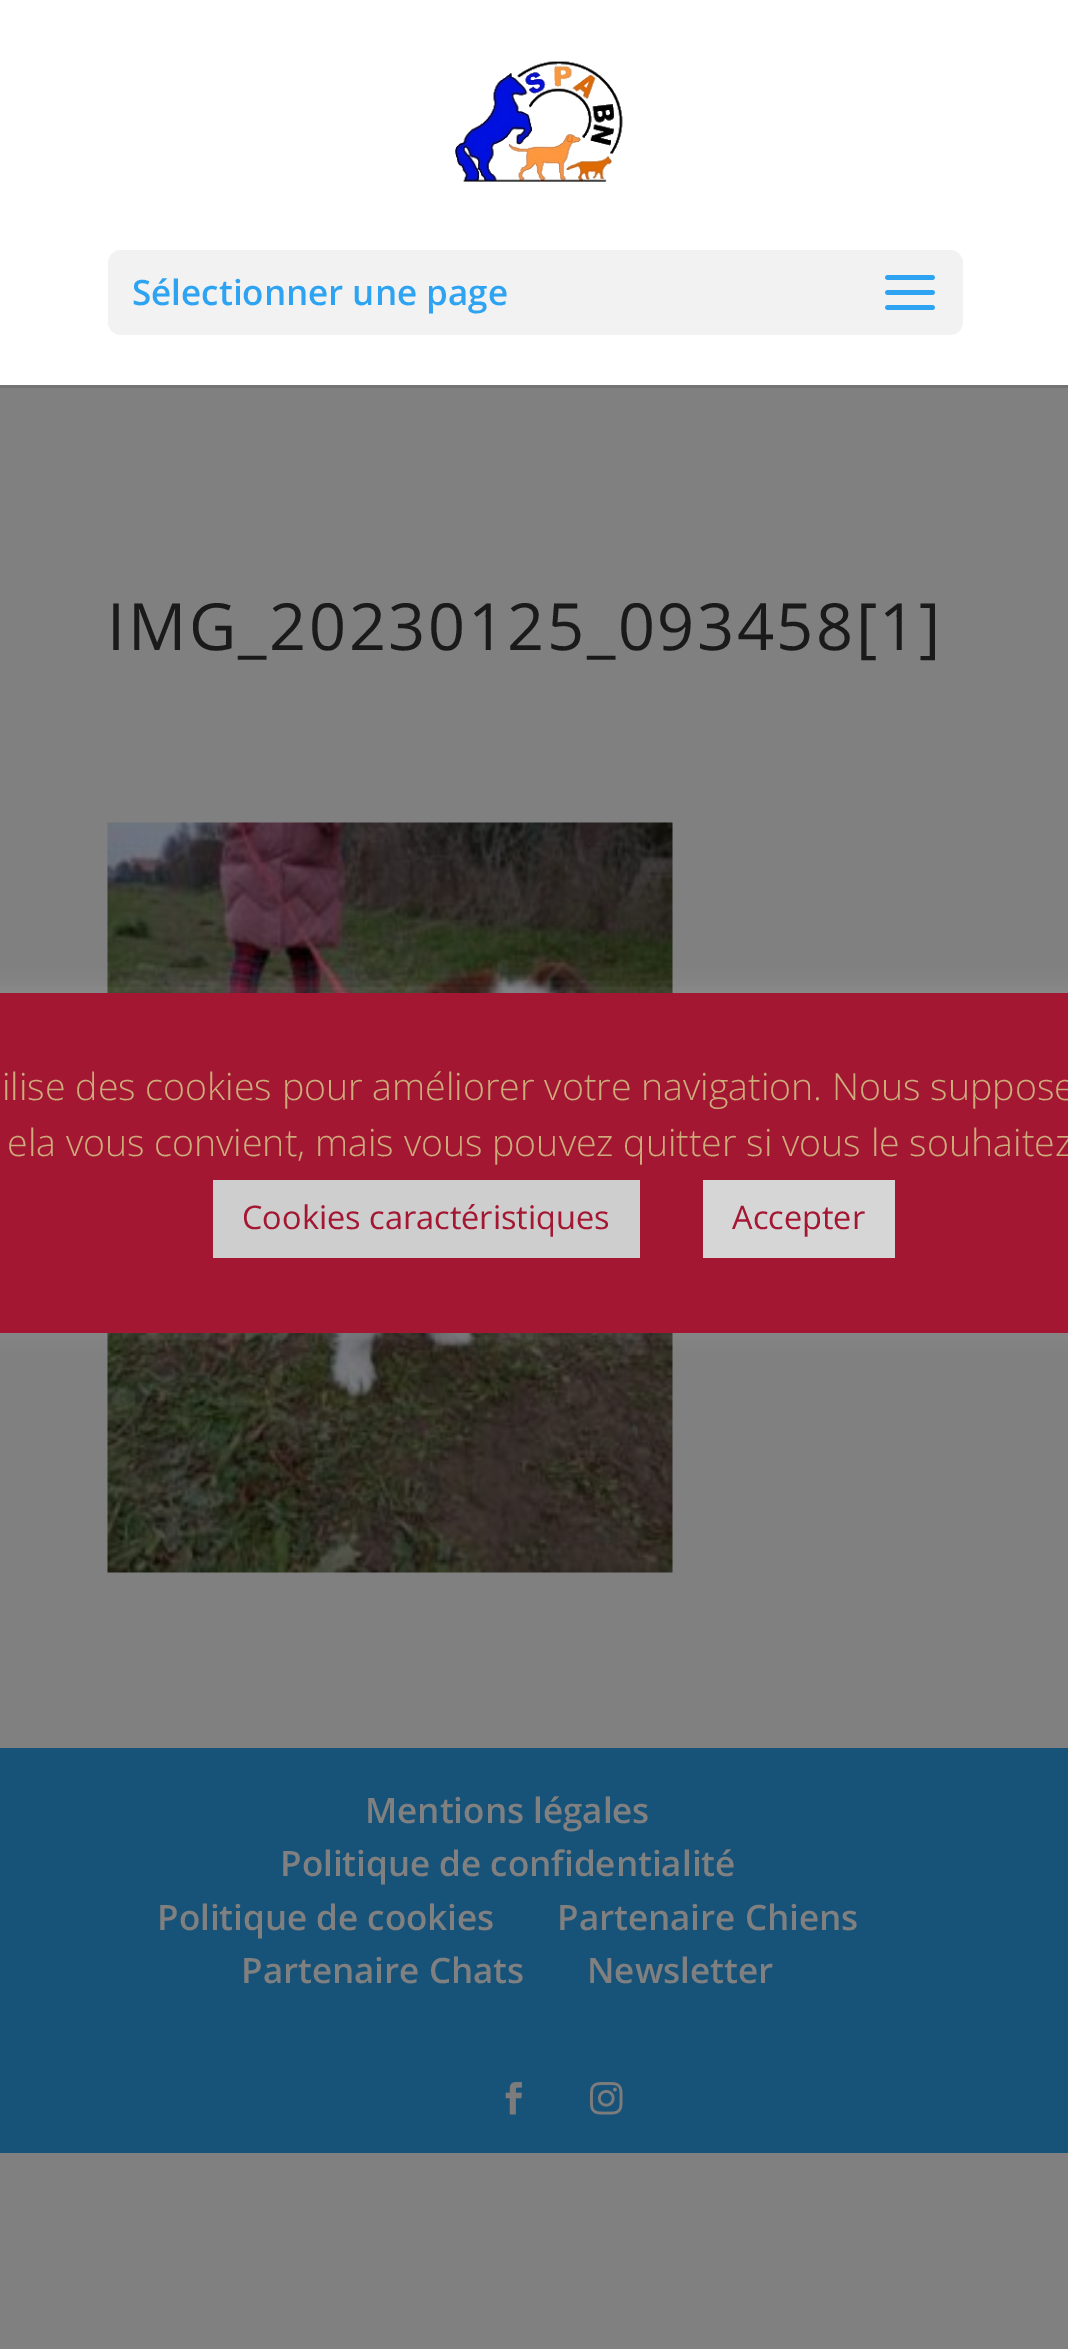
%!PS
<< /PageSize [1068 2349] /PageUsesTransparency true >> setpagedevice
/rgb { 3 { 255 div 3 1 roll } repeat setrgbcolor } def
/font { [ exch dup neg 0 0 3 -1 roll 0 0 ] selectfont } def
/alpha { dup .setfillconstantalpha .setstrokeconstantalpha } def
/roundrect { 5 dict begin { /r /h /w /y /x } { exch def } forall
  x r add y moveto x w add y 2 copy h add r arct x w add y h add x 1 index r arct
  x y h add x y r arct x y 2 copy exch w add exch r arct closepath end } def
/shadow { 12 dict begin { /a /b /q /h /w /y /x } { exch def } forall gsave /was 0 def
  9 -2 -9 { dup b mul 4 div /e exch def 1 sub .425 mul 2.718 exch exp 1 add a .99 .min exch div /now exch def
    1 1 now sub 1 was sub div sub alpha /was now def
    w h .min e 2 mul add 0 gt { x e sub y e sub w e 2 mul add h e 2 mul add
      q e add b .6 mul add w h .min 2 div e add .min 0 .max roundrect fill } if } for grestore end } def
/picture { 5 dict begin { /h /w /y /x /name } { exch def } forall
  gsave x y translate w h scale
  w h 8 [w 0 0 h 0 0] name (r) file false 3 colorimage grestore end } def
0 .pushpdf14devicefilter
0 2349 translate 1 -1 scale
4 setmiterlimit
128 128 128 rgb
0 0 1068 2349 rectfill
115 115 115 rgb
0 385 1068 3 rectfill
255 255 255 rgb
0 0 1068 385 rectfill
(img/1.rgb) 455 61 168 121 picture
242 242 242 rgb
108 250 855 85 13 roundrect fill
(img/2.rgb) 885 275 50 35 picture
(img/3.rgb) 107 822 566 751 picture
23 82 121 rgb
0 1748 1068 405 rectfill
(img/4.rgb) 505 2082 17 33 picture
(img/5.rgb) 590 2082 33 33 picture
172 171 171 rgb
-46 990 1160 340 8 12.5 0.3 shadow
[
  [0 993 1068 340 163 23 50]
  [213 1180 427 78 206 206 206]
  [703 1180 192 78 214 214 214]
] { aload pop rgb rectfill } forall
/OpenSans-SemiBold 35 font
46 163 242 rgb
132 305 moveto (Sélectionner une page) show
/OpenSans-Regular 65 font
26 26 26 rgb
107 650 moveto 2.5 0 (IMG_20230125_093458[1]) ashow
/OpenSans-SemiBold 35 font
128 128 128 rgb
[
  [(Mentions légales) 365 1823]
  [(Politique de confidentialité) 280 1876]
  [(Politique de cookies) 157 1930]
  [(Partenaire Chiens) 557 1930]
  [(Partenaire Chats) 241 1983]
  [(Newsletter) 587 1983]
] { aload pop moveto show } forall
/OpenSans-Light 37.5 font
205 171 123 rgb
2 1100 moveto (ilise des cookies pour améliorer votre navigation. Nous suppose) show
7 1156 moveto (ela vous convient, mais vous pouvez quitter si vous le souhaitez) show
/OpenSans-Regular 32.5 font
163 23 50 rgb
242 1229 moveto (Cookies caractéristiques) show
732 1229 moveto (Accepter) show
.poppdf14devicefilter showpage
